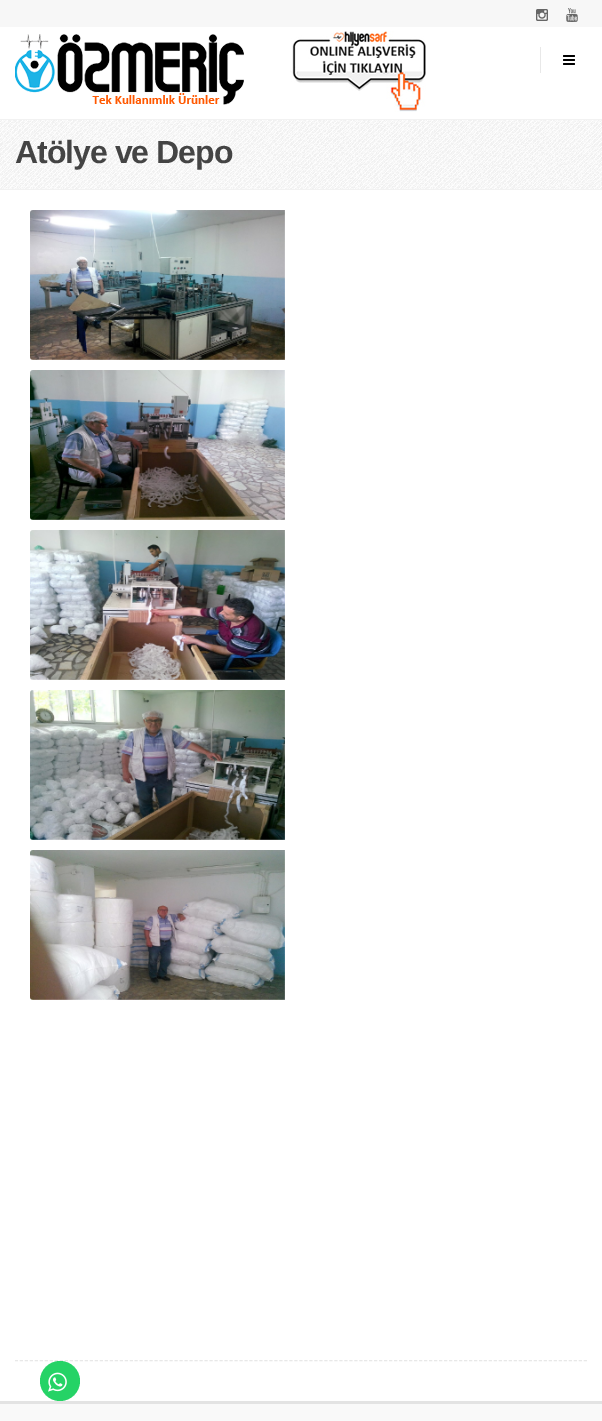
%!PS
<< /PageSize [602 1421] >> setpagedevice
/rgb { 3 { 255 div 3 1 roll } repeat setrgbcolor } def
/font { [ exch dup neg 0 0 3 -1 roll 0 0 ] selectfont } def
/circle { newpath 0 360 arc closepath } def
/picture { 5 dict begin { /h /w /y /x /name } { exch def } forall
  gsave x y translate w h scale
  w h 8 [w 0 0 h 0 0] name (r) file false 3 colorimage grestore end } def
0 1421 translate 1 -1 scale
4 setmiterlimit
255 255 255 rgb
0 0 602 1421 rectfill
247 247 247 rgb
0 0 602 27 rectfill
(img/1.rgb) 536 9 12 12 picture
(img/2.rgb) 566 8 12 14 picture
242 242 242 rgb
0 119 602 1 rectfill
(img/3.rgb) 15 34 229 71 picture
(img/4.rgb) 290 31 136 81 picture
232 232 232 rgb
540 47 1 26 rectfill
(img/5.rgb) 563 55 12 10 picture
(img/6.rgb) 0 120 602 69 picture
242 242 242 rgb
0 189 602 1 rectfill
(img/7.rgb) 30 210 255 150 picture
(img/8.rgb) 30 370 255 150 picture
(img/9.rgb) 30 530 255 150 picture
(img/10.rgb) 30 690 255 150 picture
(img/11.rgb) 30 850 255 150 picture
232 232 232 rgb
[3 1.99] 0 setdash
15 1360.5 moveto 587 1360.5 lineto stroke
249 249 249 rgb
0 1404 602 17 rectfill
227 227 227 rgb
0 1401 602 3 rectfill
37 211 102 rgb
60 1381 20 circle fill
(img/12.rgb) 48 1372 19 20 picture
/LiberationSans-Bold 32 font
68 68 68 rgb
15 163 moveto -1 0 (Atölye ve Depo) ashow
showpage
